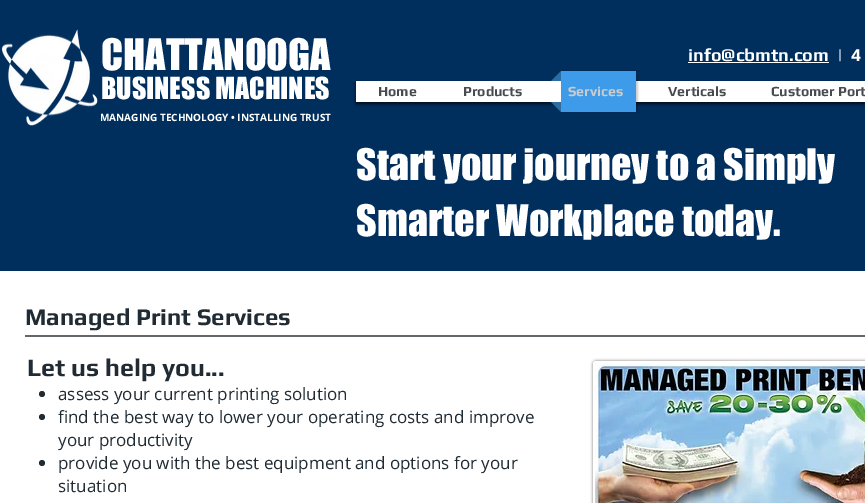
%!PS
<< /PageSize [865 503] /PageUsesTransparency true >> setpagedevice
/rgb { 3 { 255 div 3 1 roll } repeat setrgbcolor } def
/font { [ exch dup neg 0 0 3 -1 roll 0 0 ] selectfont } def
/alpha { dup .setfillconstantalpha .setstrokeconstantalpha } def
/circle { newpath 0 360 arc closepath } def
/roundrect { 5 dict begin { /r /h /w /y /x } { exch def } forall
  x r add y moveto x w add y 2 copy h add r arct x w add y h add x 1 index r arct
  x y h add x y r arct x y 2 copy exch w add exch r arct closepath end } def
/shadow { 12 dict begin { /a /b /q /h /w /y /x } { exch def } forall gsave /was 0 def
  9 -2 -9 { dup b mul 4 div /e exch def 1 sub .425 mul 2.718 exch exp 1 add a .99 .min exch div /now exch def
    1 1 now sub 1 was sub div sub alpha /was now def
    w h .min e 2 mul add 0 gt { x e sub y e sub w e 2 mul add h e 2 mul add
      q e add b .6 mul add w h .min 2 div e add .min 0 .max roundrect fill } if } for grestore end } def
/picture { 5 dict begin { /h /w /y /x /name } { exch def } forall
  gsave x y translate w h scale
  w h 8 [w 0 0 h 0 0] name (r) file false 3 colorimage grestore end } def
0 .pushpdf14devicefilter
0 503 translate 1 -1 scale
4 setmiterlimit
255 255 255 rgb
0 0 865 503 rectfill
0 46 93 rgb
0 0 865 271 rectfill
(img/1.rgb) 1 29 97 97 picture
255 255 255 rgb
688 62 141 1 rectfill
0 0 0 rgb
356 83 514 21 0 1.5 0.7 shadow
255 255 255 rgb
356 81 509 21 rectfill
0 0 0 rgb
563 71 75 41 0 1 0.2 shadow
43 109 163 rgb
561 81 moveto 551 81 lineto 561 71 lineto closepath 551 102 moveto 561 102 lineto 561 112 lineto closepath fill
61 155 233 rgb
561 71 75 41 rectfill
99 103 105 rgb
25 335 840 2 rectfill
32 43 51 rgb
42 394 3 circle fill
42 417 3 circle fill
42 463 3 circle fill
0 0 0 rgb
593 361 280 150 3 1.5 0.5 shadow
255 255 255 rgb
594 362 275 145 2 roundrect gsave fill grestore
2 setlinewidth
stroke
(img/2.rgb) 595 363 270 140 picture
/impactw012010-Regular 40 font
101 70 moveto (CHATTANOOGA) show
/Play-Bold 18 font
688 61 moveto (info@cbmtn.com) show
/Play-Regular 18 font
837 61 moveto (|) show
/Play-Bold 18 font
851 61 moveto (4) show
/impactw012010-Regular 28 font
101 99 moveto (BUSINESS MACHINES) show
/Play-Bold 14 font
70 75 78 rgb
378 96 moveto (Home) show
463 96 moveto (Products) show
204 204 204 rgb
568 96 moveto (Services) show
70 75 78 rgb
668 96 moveto (Verticals) show
771 96 moveto (Customer Port) show
/OpenSans-Bold 10 font
255 255 255 rgb
100 121 moveto (MANAGING TECHNOLOGY • INSTALLING TRUST) show
/impactw012010-Regular 40 font
356 180 moveto (Start your journey to a Simply) show
356 236 moveto (Smarter Workplace today.) show
/Play-Bold 24 font
32 43 51 rgb
25 325 moveto (Managed Print Services) show
/Play-Bold 25 font
27 376 moveto (Let us help you...) show
/OpenSans-Regular 17 font
[
  [(assess your current printing solution) 58 400]
  [(find the best way to lower your operating costs and improve) 58 423]
  [(your productivity) 58 446]
  [(provide you with the best equipment and options for your) 58 469]
  [(situation) 58 492]
] { aload pop moveto show } forall
.poppdf14devicefilter showpage
